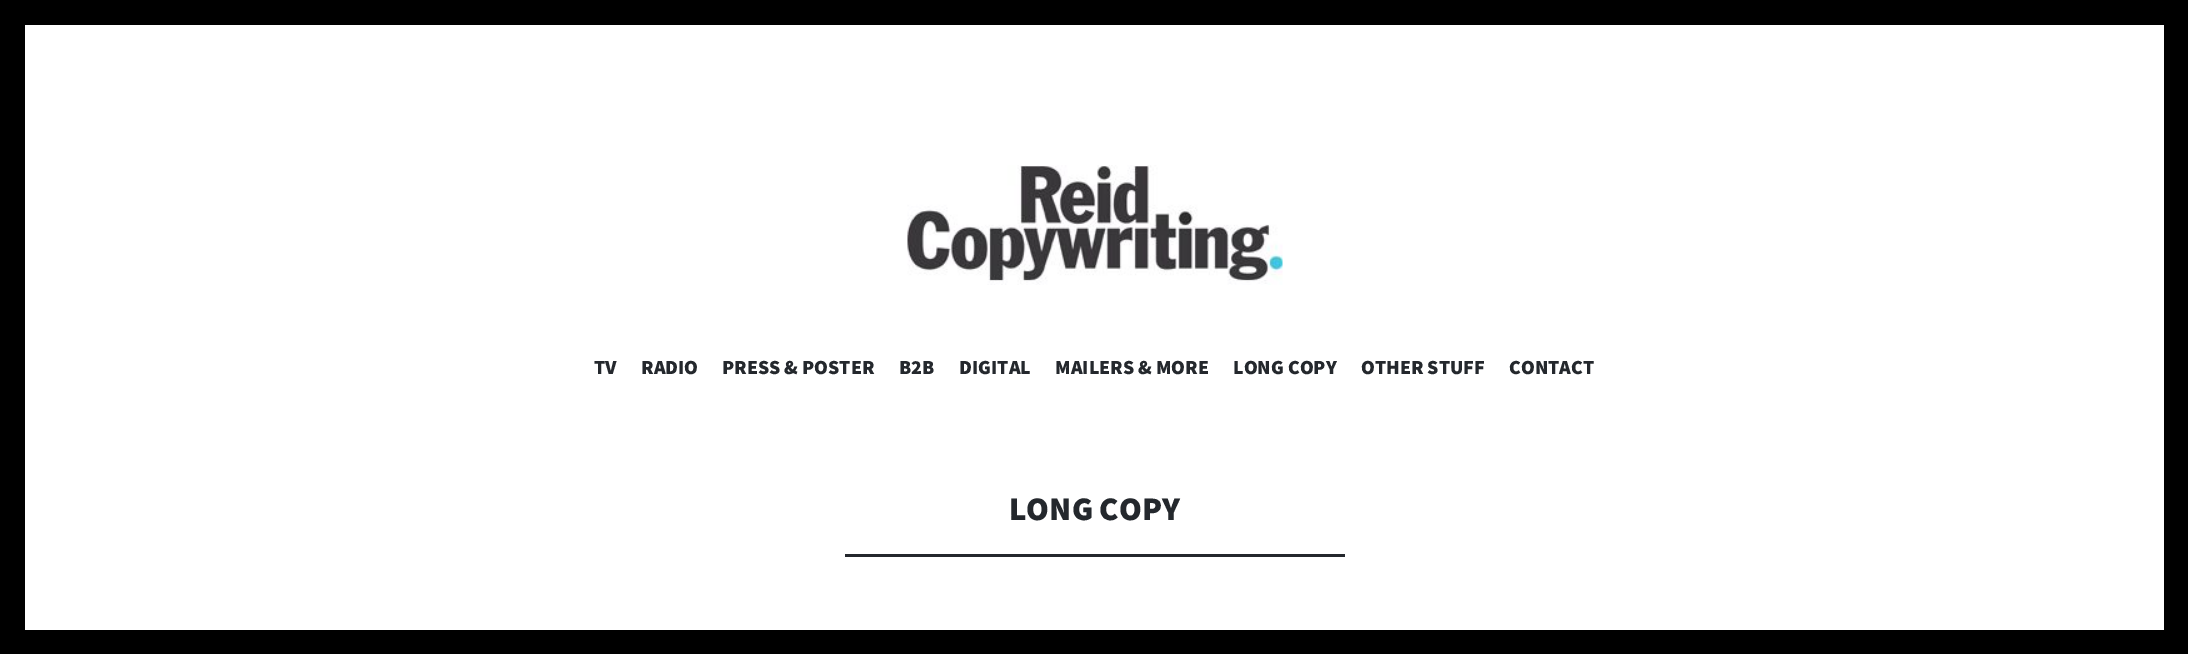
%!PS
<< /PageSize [2188 654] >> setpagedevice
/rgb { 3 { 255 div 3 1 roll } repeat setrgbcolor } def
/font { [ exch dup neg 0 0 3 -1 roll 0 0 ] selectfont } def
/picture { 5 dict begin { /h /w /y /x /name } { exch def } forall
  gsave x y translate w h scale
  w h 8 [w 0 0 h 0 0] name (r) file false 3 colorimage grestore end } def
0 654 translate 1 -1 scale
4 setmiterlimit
0 0 0 rgb
0 0 2188 654 rectfill
255 255 255 rgb
25 25 2139 605 rectfill
(img/1.rgb) 907 165 376 120 picture
36 40 45 rgb
845 554 500 3 rectfill
/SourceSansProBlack-Black 20 font
[
  [(TV) 594 374]
  [(RADIO) 641 374]
  [(PRESS & POSTER) 722 374]
  [(B2B) 899 374]
  [(DIGITAL) 959 374]
  [(MAILERS & MORE) 1055 374]
  [(LONG COPY) 1233 374]
  [(OTHER STUFF) 1361 374]
  [(CONTACT) 1509 374]
] { aload pop moveto show } forall
/SourceSansProBlack-Black 33 font
1009 520 moveto (LONG COPY) show
showpage
